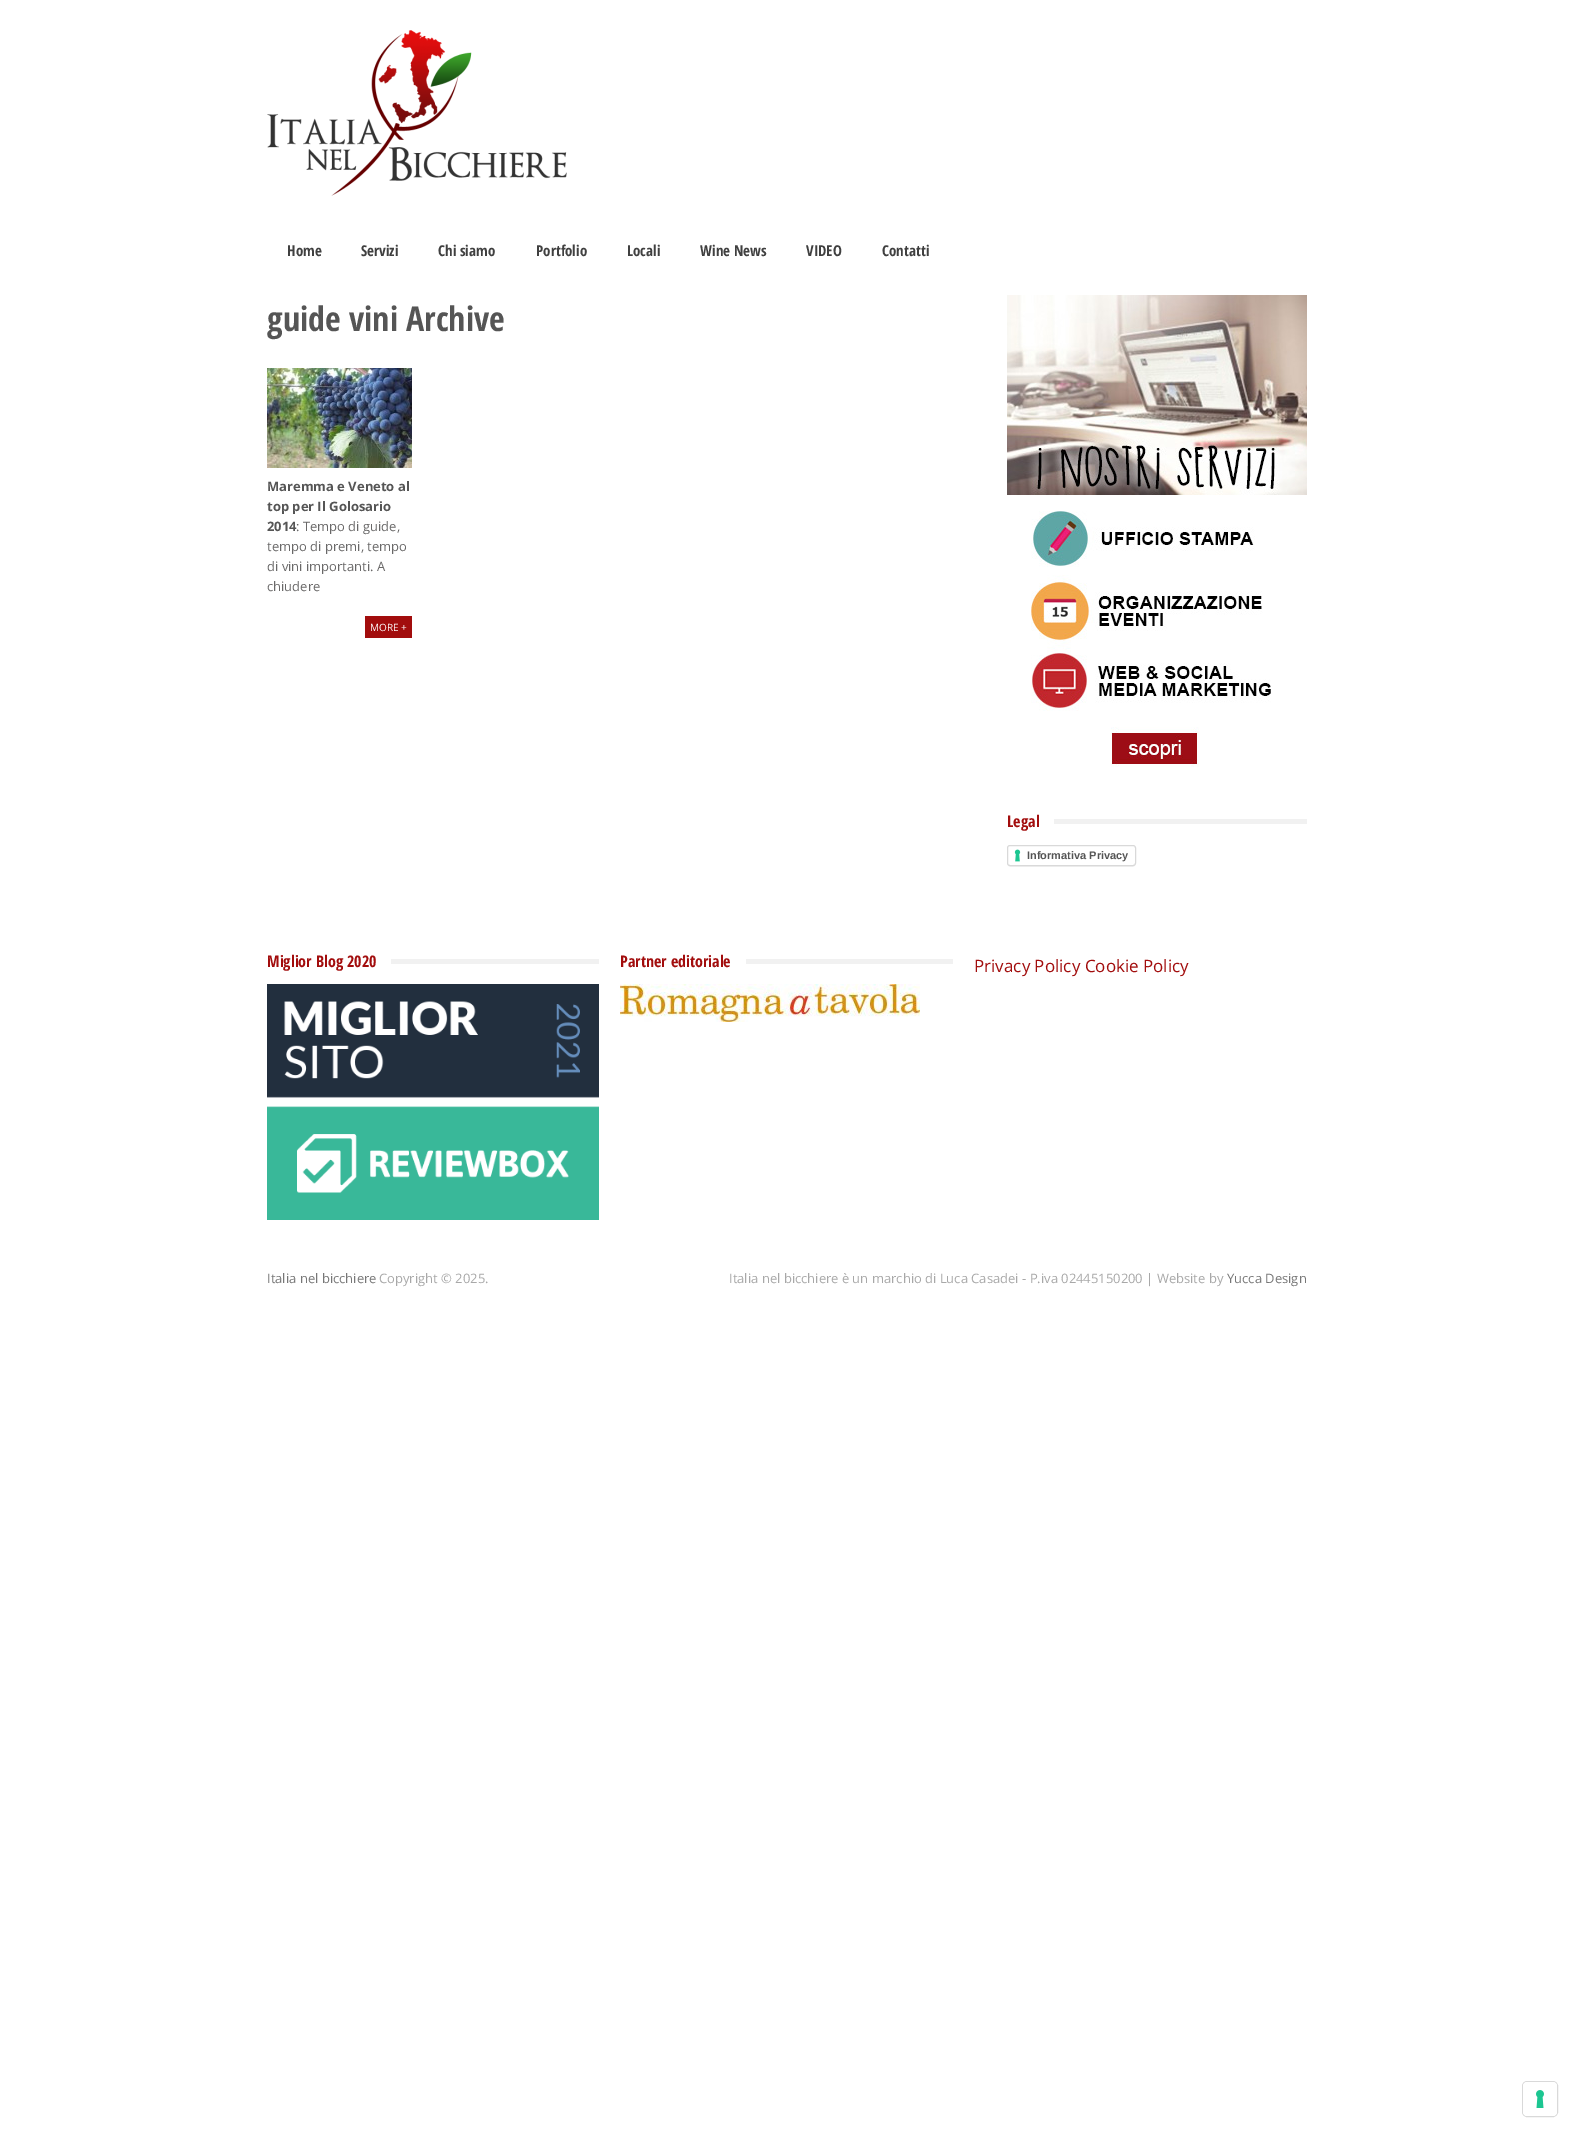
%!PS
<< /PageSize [1573 2132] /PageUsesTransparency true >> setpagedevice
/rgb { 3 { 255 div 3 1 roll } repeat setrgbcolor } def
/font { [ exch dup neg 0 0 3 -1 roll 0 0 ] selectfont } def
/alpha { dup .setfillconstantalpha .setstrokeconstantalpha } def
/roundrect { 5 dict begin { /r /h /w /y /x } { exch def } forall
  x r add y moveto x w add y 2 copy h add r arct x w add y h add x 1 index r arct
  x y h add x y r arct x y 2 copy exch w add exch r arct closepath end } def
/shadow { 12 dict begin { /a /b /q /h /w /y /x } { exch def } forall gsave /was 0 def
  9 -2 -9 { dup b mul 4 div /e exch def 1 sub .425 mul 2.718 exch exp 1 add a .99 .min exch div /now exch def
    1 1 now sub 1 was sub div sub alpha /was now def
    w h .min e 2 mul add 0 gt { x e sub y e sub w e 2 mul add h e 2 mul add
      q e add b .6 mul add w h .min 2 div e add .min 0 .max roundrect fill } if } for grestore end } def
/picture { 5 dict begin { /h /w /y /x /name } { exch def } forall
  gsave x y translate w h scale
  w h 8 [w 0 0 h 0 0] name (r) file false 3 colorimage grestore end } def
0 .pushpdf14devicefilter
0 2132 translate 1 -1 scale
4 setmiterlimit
255 255 255 rgb
0 0 1573 2132 rectfill
(img/1.rgb) 267 30 300 166 picture
(img/2.rgb) 267 368 145 100 picture
162 13 13 rgb
365 616 47 22 rectfill
(img/3.rgb) 1007 295 300 472 picture
241 241 241 rgb
1054 819 253 5 rectfill
0 0 0 rgb
1008 847 127 19 2 0.5 0.15 shadow
255 255 255 rgb
1007 845 129 21 3 roundrect fill
(img/4.rgb) 1014 849 7 13 picture
0.15 alpha
0 0 0 rgb
1007.5 845.5 128 20 2.5 roundrect stroke
1 alpha
241 241 241 rgb
391 959 208 5 rectfill
(img/5.rgb) 267 984 332 236 picture
746 959 207 5 rectfill
(img/6.rgb) 620 984 300 38 picture
0.15 alpha
0 0 0 rgb
1522.5 2081.5 35 35 4.5 roundrect stroke
1 alpha
255 255 255 rgb
1523 2082 34 34 4 roundrect fill
(img/7.rgb) 1536 2090 8 18 picture
/OpenSansCondensed-Bold 15 font
64 64 64 rgb
[
  [(Home) 287 256]
  [(Servizi) 361 256]
  [(Chi siamo) 438 256]
  [(Portfolio) 536 256]
  [(Locali) 627 256]
  [(Wine News) 700 256]
  [(VIDEO) 806 256]
  [(Contatti) 882 256]
] { aload pop moveto show } forall
/OpenSansCondensed-Bold 34 font
85 85 85 rgb
267 331 moveto (guide vini Archive) show
/OpenSans-Bold 13 font
[
  [(Maremma e Veneto al) 267 491]
  [(top per Il Golosario) 267 511]
  [(2014) 267 531]
] { aload pop moveto show } forall
/OpenSans-Regular 13 font
105 104 104 rgb
[
  [(: Tempo di guide,) 296 531]
  [(tempo di premi, tempo) 267 551]
  [(di vini importanti. A) 267 571]
  [(chiudere) 267 591]
] { aload pop moveto show } forall
/OpenSans-Regular 10 font
255 255 255 rgb
370 631 moveto (MORE +) show
/OpenSansCondensed-Bold 16 font
162 13 13 rgb
1007 827 moveto (Legal) show
/LiberationSans-Bold 11 font
85 85 85 rgb
1027 859 moveto (Informativa Privacy) show
/OpenSansCondensed-Bold 16 font
162 13 13 rgb
267 967 moveto (Miglior Blog 2020) show
620 967 moveto (Partner editoriale) show
/OpenSans-Regular 17 font
974 972 moveto (Privacy Policy Cookie Policy) show
/OpenSans-Regular 13 font
119 119 119 rgb
267 1283 moveto (Italia nel bicchiere) show
168 168 168 rgb
379 1283 moveto (Copyright © 2025.) show
729 1283 moveto (Italia nel bicchiere è un marchio di Luca Casadei - P.iva 02445150200 | Website by) show
119 119 119 rgb
1227 1283 moveto (Yucca Design) show
.poppdf14devicefilter showpage
